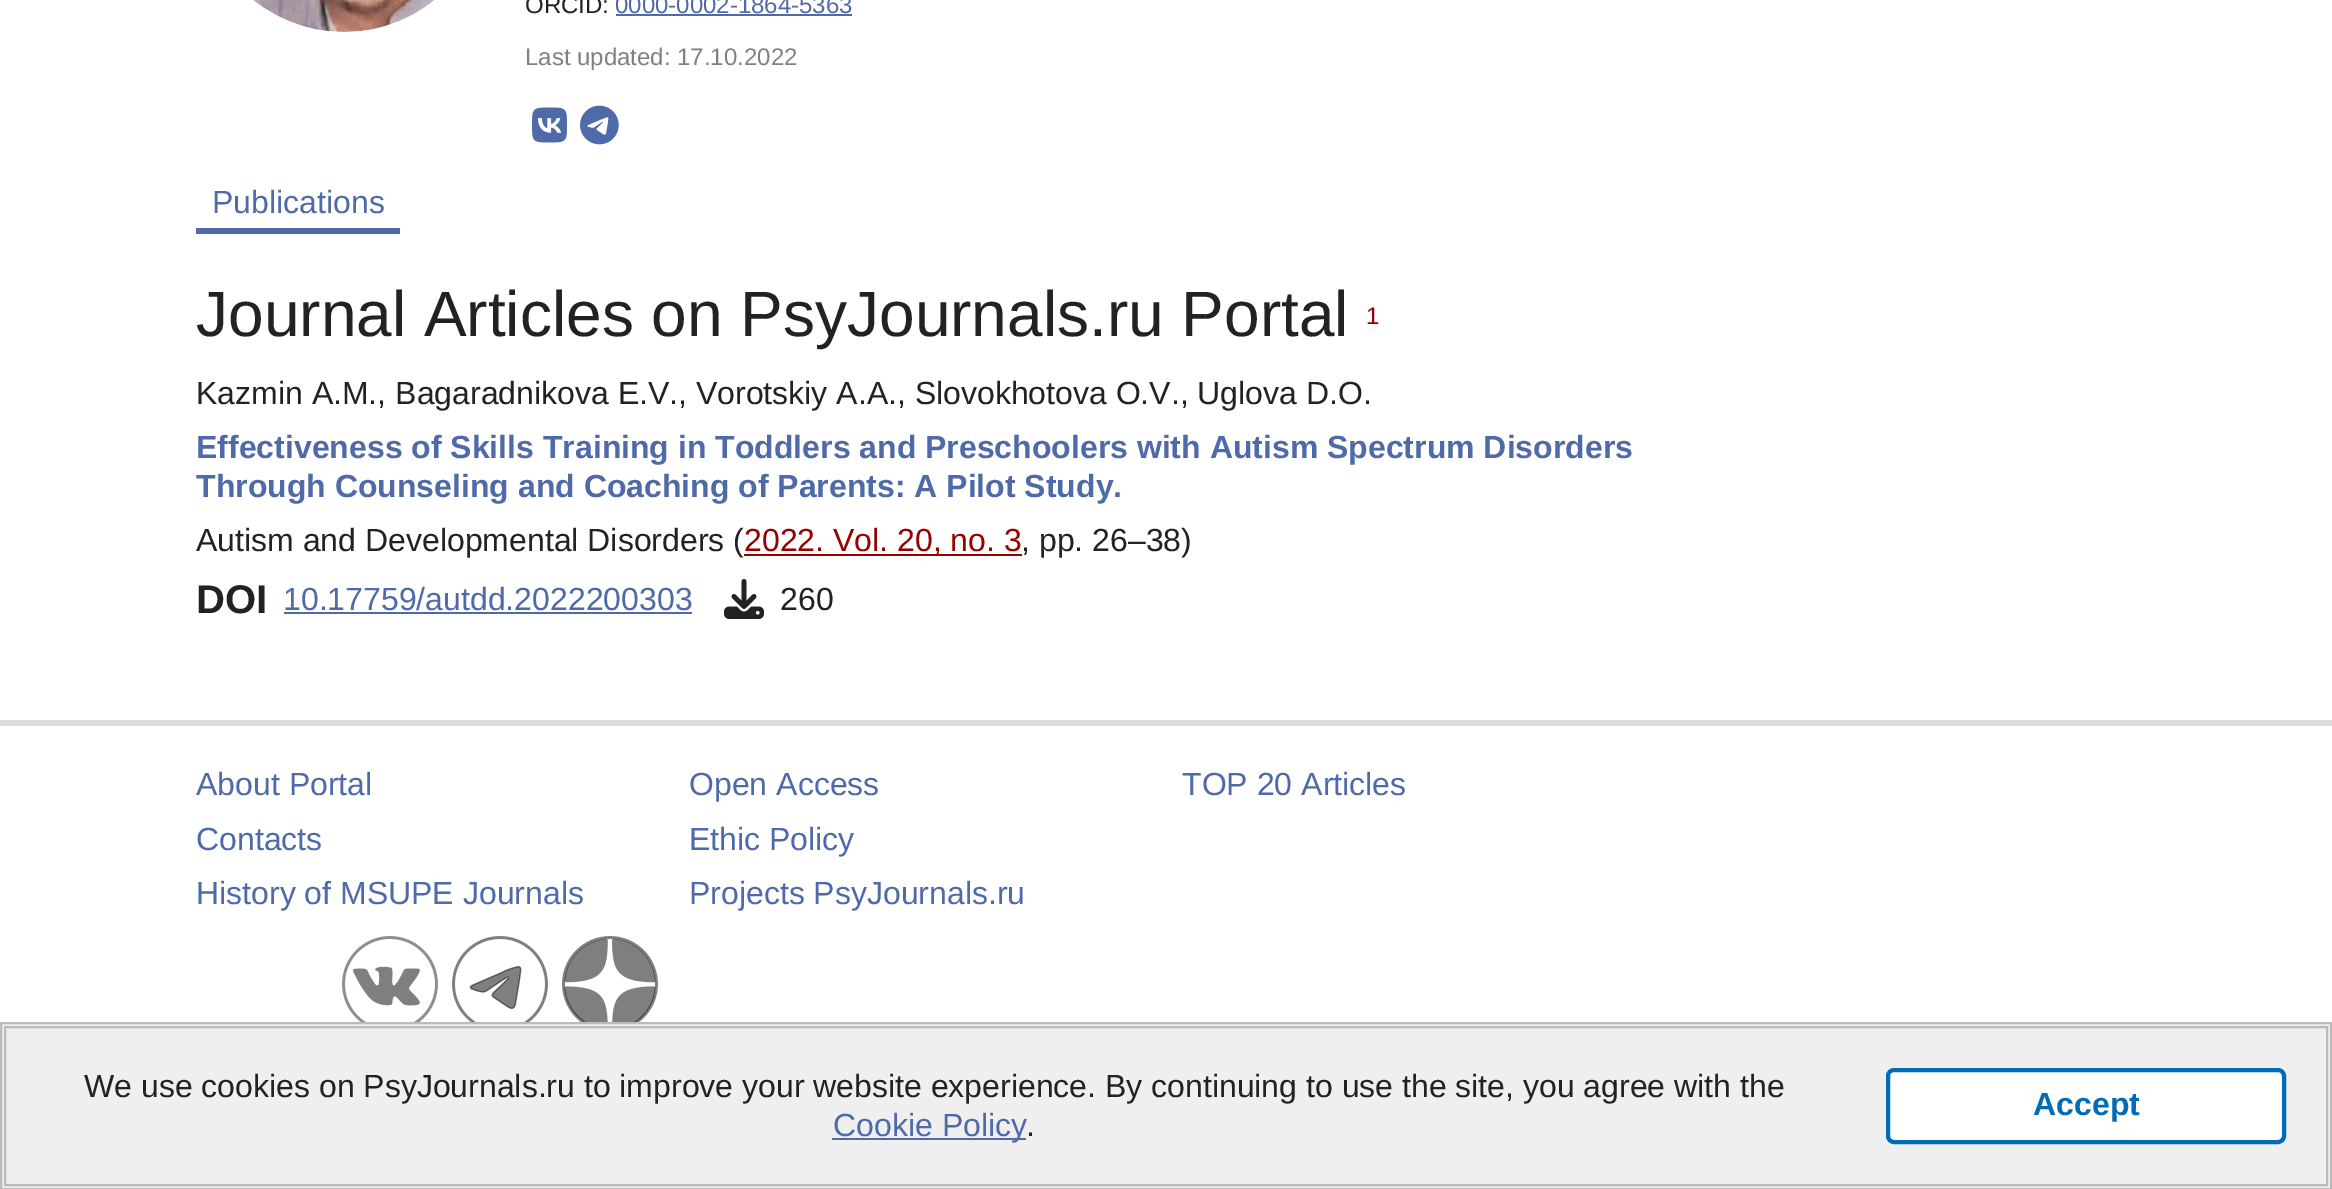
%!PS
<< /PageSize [2332 1189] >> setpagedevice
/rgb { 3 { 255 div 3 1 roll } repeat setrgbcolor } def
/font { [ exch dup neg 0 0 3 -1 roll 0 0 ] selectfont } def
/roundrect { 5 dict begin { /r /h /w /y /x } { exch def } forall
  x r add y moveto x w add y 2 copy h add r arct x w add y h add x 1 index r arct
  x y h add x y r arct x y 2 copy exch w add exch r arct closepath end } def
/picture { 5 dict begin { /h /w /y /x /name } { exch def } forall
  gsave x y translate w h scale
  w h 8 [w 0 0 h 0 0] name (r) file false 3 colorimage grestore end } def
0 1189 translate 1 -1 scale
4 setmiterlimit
255 255 255 rgb
0 0 2332 1189 rectfill
(img/1.rgb) 253 0 181 32 picture
78 106 169 rgb
616 14 236 2 rectfill
(img/2.rgb) 532 107 35 36 picture
(img/3.rgb) 580 105 39 40 picture
[
  [196 228 204 6 78 106 169]
  [744 554 278 2 153 0 0]
  [284 612 408 2 78 106 169]
] { aload pop rgb rectfill } forall
(img/4.rgb) 724 579 40 40 picture
221 221 221 rgb
0 720 2332 6 rectfill
(img/5.rgb) 342 936 96 86 picture
(img/6.rgb) 452 936 96 86 picture
(img/7.rgb) 562 936 96 86 picture
239 239 239 rgb
1 1023 moveto 2331 1023 lineto 2331 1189 lineto 1 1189 lineto closepath gsave fill grestore
189 186 189 rgb
2 setlinewidth
stroke
5 1027 2322 158 rectstroke
78 106 169 rgb
832 1138 194 2 rectfill
255 255 255 rgb
1888 1070 396 72 6 roundrect gsave fill grestore
0 108 183 rgb
4 setlinewidth
stroke
/LiberationSans-Regular 24 font
34 34 34 rgb
525 13 moveto (ORCID:) show
78 106 169 rgb
615 13 moveto (0000-0002-1864-5363) show
128 128 128 rgb
525 65 moveto (Last updated: 17.10.2022) show
/LiberationSans-Regular 32 font
78 106 169 rgb
212 213 moveto (Publications) show
/LiberationSans-Regular 64 font
34 34 34 rgb
196 336 moveto (Journal Articles on PsyJournals.ru Portal) show
/LiberationSans-Regular 24 font
153 0 0 rgb
1366 324 moveto (1) show
/LiberationSans-Regular 32 font
34 34 34 rgb
196 404 moveto (Kazmin A.M., Bagaradnikova E.V., Vorotskiy A.A., Slovokhotova O.V., Uglova D.O.) show
/LiberationSans-Bold 32 font
78 106 169 rgb
196 458 moveto (Effectiveness of Skills Training in Toddlers and Preschoolers with Autism Spectrum Disorders) show
196 497 moveto (Through Counseling and Coaching of Parents: A Pilot Study.) show
/LiberationSans-Regular 32 font
34 34 34 rgb
196 551 moveto (Autism and Developmental Disorders \() show
153 0 0 rgb
744 551 moveto (2022. Vol. 20, no. 3) show
34 34 34 rgb
1021 551 moveto (, pp. 26–38\)) show
/LiberationSans-Bold 40 font
196 613 moveto (DOI) show
/LiberationSans-Regular 32 font
78 106 169 rgb
283 610 moveto (10.17759/autdd.2022200303) show
34 34 34 rgb
780 610 moveto (260) show
78 106 169 rgb
[
  [(About Portal) 196 795]
  [(Contacts) 196 850]
  [(History of MSUPE Journals) 196 904]
  [(Open Access) 689 795]
  [(Ethic Policy) 689 850]
  [(Projects PsyJournals.ru) 689 904]
  [(TOP 20 Articles) 1182 795]
] { aload pop moveto show } forall
34 34 34 rgb
84 1097 moveto (We use cookies on PsyJournals.ru to improve your website experience. By continuing to use the site, you agree with the) show
78 106 169 rgb
833 1136 moveto (Cookie Policy) show
34 34 34 rgb
1026 1136 moveto (.) show
/LiberationSans-Bold 32 font
0 108 183 rgb
2033 1115 moveto (Accept) show
showpage
